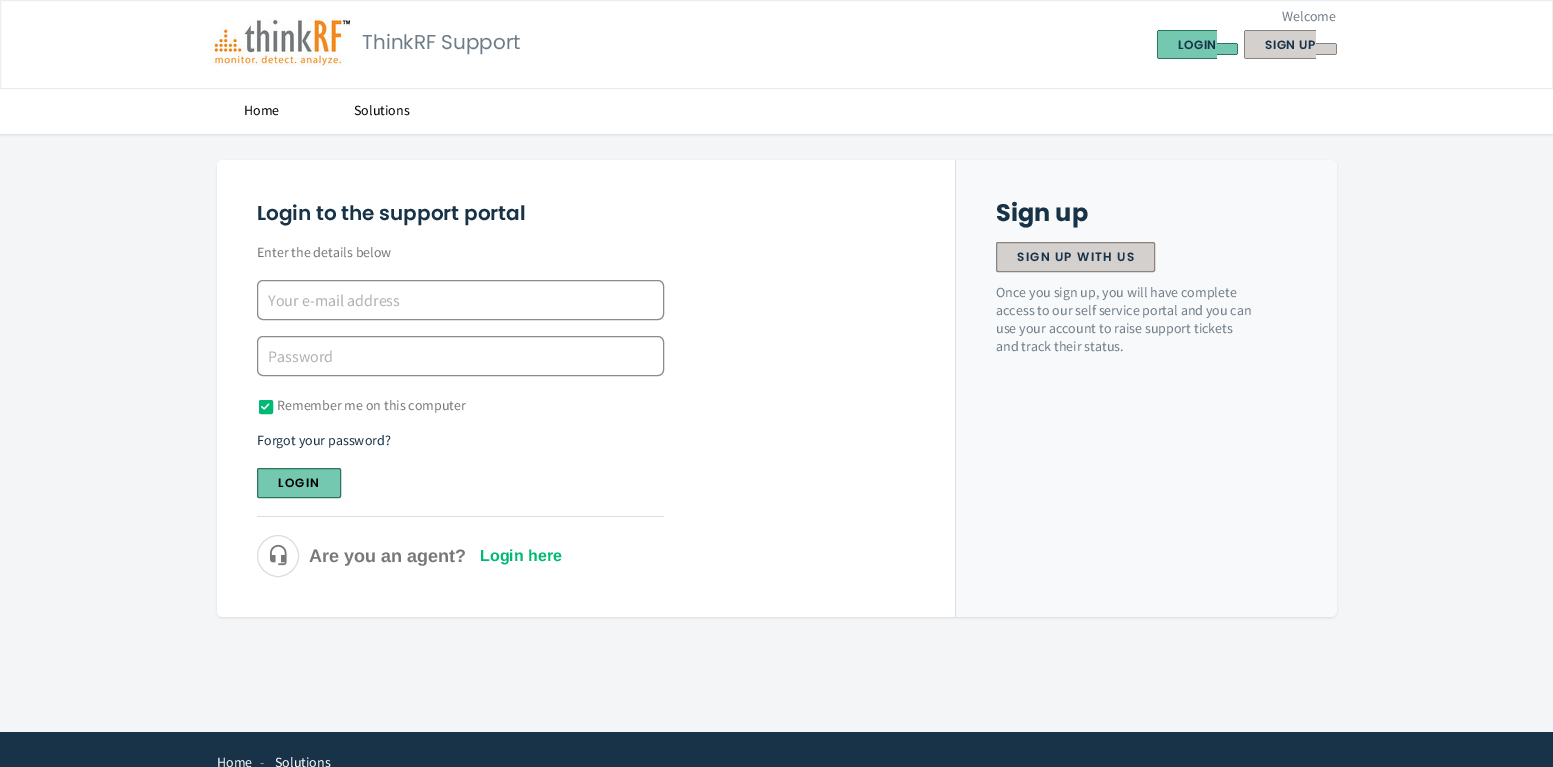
%!PS
<< /PageSize [1553 767] /PageUsesTransparency true >> setpagedevice
/rgb { 3 { 255 div 3 1 roll } repeat setrgbcolor } def
/font { [ exch dup neg 0 0 3 -1 roll 0 0 ] selectfont } def
/alpha { dup .setfillconstantalpha .setstrokeconstantalpha } def
/circle { newpath 0 360 arc closepath } def
/roundrect { 5 dict begin { /r /h /w /y /x } { exch def } forall
  x r add y moveto x w add y 2 copy h add r arct x w add y h add x 1 index r arct
  x y h add x y r arct x y 2 copy exch w add exch r arct closepath end } def
/shadow { 12 dict begin { /a /b /q /h /w /y /x } { exch def } forall gsave /was 0 def
  9 -2 -9 { dup b mul 4 div /e exch def 1 sub .425 mul 2.718 exch exp 1 add a .99 .min exch div /now exch def
    1 1 now sub 1 was sub div sub alpha /was now def
    w h .min e 2 mul add 0 gt { x e sub y e sub w e 2 mul add h e 2 mul add
      q e add b .6 mul add w h .min 2 div e add .min 0 .max roundrect fill } if } for grestore end } def
/picture { 5 dict begin { /h /w /y /x /name } { exch def } forall
  gsave x y translate w h scale
  w h 8 [w 0 0 h 0 0] name (r) file false 3 colorimage grestore end } def
0 .pushpdf14devicefilter
0 767 translate 1 -1 scale
4 setmiterlimit
243 245 247 rgb
0 0 1553 767 rectfill
255 255 255 rgb
0.5 0.5 moveto 1552.5 0.5 lineto 1552.5 88.5 lineto 0.5 88.5 lineto closepath gsave fill grestore
235 238 240 rgb
stroke
(img/1.rgb) 212 18 140 48 picture
115 200 175 rgb
1159 30 moveto 1217 30 lineto 1217 59 lineto 1159 59 lineto 1158 59 1157 58 1157 57 curveto 1157 32 lineto 1157 31 1158 30 1159 30 curveto closepath fill
[
  [1158 30 59 1 46 116 96]
  [1158 58 59 1 46 116 96]
  [1157 31 1 27 46 116 96]
] { aload pop rgb rectfill } forall
115 200 175 rgb
1217 43 moveto 1236 43 lineto 1237 43 1238 44 1238 45 curveto 1238 53 lineto 1238 54 1237 55 1236 55 curveto 1217 55 lineto closepath fill
[
  [1217 43 20 1 46 116 96]
  [1237 44 1 10 46 116 96]
  [1217 54 20 1 46 116 96]
] { aload pop rgb rectfill } forall
211 208 206 rgb
1246 30 moveto 1316 30 lineto 1316 59 lineto 1246 59 lineto 1245 59 1244 58 1244 57 curveto 1244 32 lineto 1244 31 1245 30 1246 30 curveto closepath fill
[
  [1245 30 71 1 139 131 125]
  [1245 58 71 1 139 131 125]
  [1244 31 1 27 139 131 125]
] { aload pop rgb rectfill } forall
211 208 206 rgb
1316 43 moveto 1335 43 lineto 1336 43 1337 44 1337 45 curveto 1337 53 lineto 1337 54 1336 55 1335 55 curveto 1316 55 lineto closepath fill
[
  [1316 43 20 1 139 131 125]
  [1336 44 1 10 139 131 125]
  [1316 54 20 1 139 131 125]
] { aload pop rgb rectfill } forall
63 63 68 rgb
0 90 1553 45 0 1 0.15 shadow
255 255 255 rgb
0 89 1553 45 rectfill
63 63 68 rgb
217 161 1120 457 6 1 0.15 shadow
248 249 250 rgb
217 160 1120 457 6 roundrect fill
255 255 255 rgb
223 160 moveto 956 160 lineto 956 617 lineto 223 617 lineto 219.5 617 217 614.5 217 611 curveto 217 166 lineto 217 162.5 219.5 160 223 160 curveto closepath fill
218 223 227 rgb
955 160 1 457 rectfill
140 140 140 rgb
257.5 280.5 406 39 5.5 roundrect stroke
257.5 336.5 406 39 5.5 roundrect stroke
2 184 117 rgb
259.5 400.5 13 13 1.5 roundrect gsave fill grestore
stroke
(img/2.rgb) 261 403 9 7 picture
115 200 175 rgb
257.5 468.5 83 29 1.5 roundrect gsave fill grestore
46 116 96 rgb
stroke
221 221 221 rgb
257 516 407 1 rectfill
278 556 20.5 circle stroke
(img/3.rgb) 270 544 17 22 picture
211 208 206 rgb
996.5 242.5 158 29 1.5 roundrect gsave fill grestore
139 131 125 rgb
stroke
24 50 71 rgb
0 732 1553 35 rectfill
/Poppins-Regular 20 font
111 124 135 rgb
362 49 moveto (ThinkRF Support) show
/SourceSansPro-Regular 14 font
1282 21 moveto (Welcome) show
/Poppins-SemiBold 12 font
24 50 71 rgb
1178 49 moveto 0.5 0 (LOGIN) ashow
1265 49 moveto 0.5 0 (SIGN UP) ashow
/SourceSansPro-Regular 14 font
0 0 0 rgb
244 115 moveto (Home) show
354 115 moveto (Solutions) show
/Poppins-SemiBold 20 font
24 50 71 rgb
257 220 moveto (Login to the support portal) show
/SourceSansPro-Regular 14 font
119 120 120 rgb
257 257 moveto (Enter the details below) show
/SourceSansPro-Regular 16 font
178 178 178 rgb
268 306 moveto (Your e-mail address) show
268 362 moveto (Password) show
/SourceSansPro-Regular 14 font
119 120 120 rgb
277 410 moveto (Remember me on this computer) show
24 50 71 rgb
257 445 moveto (Forgot your password?) show
/Poppins-SemiBold 12 font
0 0 0 rgb
278 487 moveto 1.25 0 (LOGIN) ashow
/LiberationSans-Bold 18 font
119 120 120 rgb
309 562 moveto (Are you an agent?) show
/LiberationSans-Bold 16 font
2 184 117 rgb
480 561 moveto (Login here) show
/Poppins-Bold 24 font
24 50 71 rgb
996 221 moveto (Sign up) show
/Poppins-SemiBold 12 font
1017 261 moveto 1.25 0 (SIGN UP WITH US) ashow
/SourceSansPro-Regular 14 font
111 124 135 rgb
[
  [(Once you sign up, you will have complete) 996 297]
  [(access to our self service portal and you can) 996 315]
  [(use your account to raise support tickets) 996 333]
  [(and track their status.) 996 351]
] { aload pop moveto show } forall
255 255 255 rgb
217 767 moveto (Home) show
140 153 163 rgb
260 767 moveto (-) show
255 255 255 rgb
275 767 moveto (Solutions) show
.poppdf14devicefilter showpage
